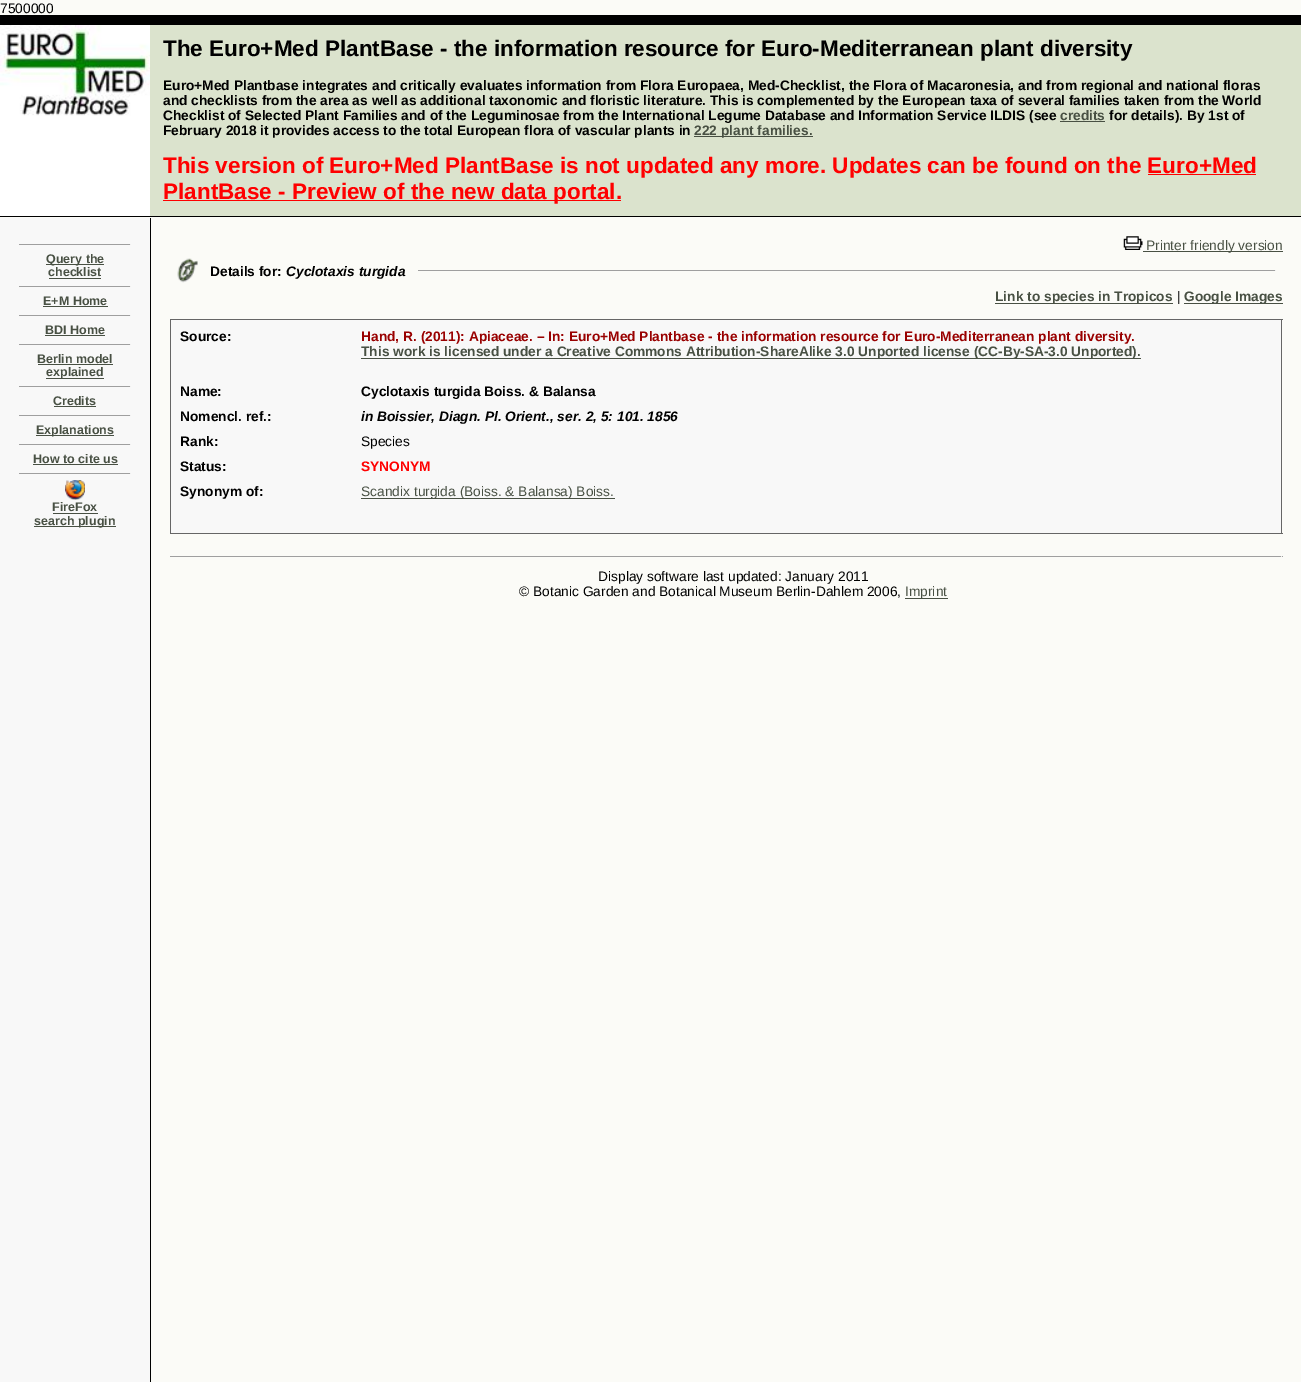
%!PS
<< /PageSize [1301 1382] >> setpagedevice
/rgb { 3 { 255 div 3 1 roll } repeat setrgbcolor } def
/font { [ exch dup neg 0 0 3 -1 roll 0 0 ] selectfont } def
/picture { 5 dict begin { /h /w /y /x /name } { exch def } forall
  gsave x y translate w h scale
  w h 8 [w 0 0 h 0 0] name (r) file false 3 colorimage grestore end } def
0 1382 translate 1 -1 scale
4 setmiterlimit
251 251 247 rgb
0 0 1301 1382 rectfill
0 0 0 rgb
0 15 1301 10 rectfill
219 227 205 rgb
150 25 1151 191 rectfill
(img/1.rgb) 0 25 150 191 picture
[
  [1060 121 45 1 72 80 67]
  [694 136 119 1 72 80 67]
  [1148 174 108 1 255 0 0]
  [163 200 458 1 255 0 0]
  [0 216 1301 1 0 0 0]
  [0 218 150 1164 248 248 248]
  [19 244 112 1 159 159 159]
  [130 244 1 1 238 238 238]
  [46 264 58 1 72 80 67]
  [49 278 52 1 72 80 67]
  [19 286 112 1 159 159 159]
  [130 286 1 1 238 238 238]
  [43 306 65 1 72 80 67]
  [19 315 112 1 159 159 159]
  [130 315 1 1 238 238 238]
  [45 335 60 1 72 80 67]
  [19 344 112 1 159 159 159]
  [130 344 1 1 238 238 238]
  [38 364 75 1 72 80 67]
  [46 378 58 1 72 80 67]
  [19 386 112 1 159 159 159]
  [130 386 1 1 238 238 238]
  [54 406 42 1 72 80 67]
  [19 415 112 1 159 159 159]
  [130 415 1 1 238 238 238]
  [36 435 78 1 72 80 67]
  [19 444 112 1 159 159 159]
  [130 444 1 1 238 238 238]
  [33 464 85 1 72 80 67]
  [19 473 112 1 159 159 159]
  [130 473 1 1 238 238 238]
] { aload pop rgb rectfill } forall
(img/2.rgb) 65 480 20 20 picture
[
  [53 513 45 1 72 80 67]
  [34 526 82 1 72 80 67]
  [150 218 1 1164 0 0 0]
] { aload pop rgb rectfill } forall
(img/3.rgb) 1123 236 20 14 picture
72 80 67 rgb
1143 251 140 1 rectfill
(img/4.rgb) 177 258 21 25 picture
[
  [418 270 858 1 159 159 159]
  [1275 270 1 1 238 238 238]
  [995 303 178 1 72 80 67]
  [1184 303 99 1 72 80 67]
  [170 319 1113 1 102 102 102]
  [1281 319 1 215 102 102 102]
  [170 533 1113 1 102 102 102]
  [170 319 1 215 102 102 102]
  [171 320 1110 213 248 248 248]
  [361 358 780 1 72 80 67]
  [361 498 254 1 72 80 67]
  [170 556 1113 1 159 159 159]
  [1281 556 1 1 238 238 238]
  [905 598 43 1 72 80 67]
] { aload pop rgb rectfill } forall
/LiberationSans-Regular 13.75 font
0 0 0 rgb
0 13 moveto (7500000) show
/LiberationSans-Bold 22.5 font
163 56 moveto (The Euro+Med PlantBase - the information resource for Euro-Mediterranean plant diversity) show
/LiberationSans-Bold 13.75 font
[
  [(Euro+Med Plantbase integrates and critically evaluates information from Flora Europaea, Med-Checklist, the Flora of Macaronesia, and from regional and national floras) 163 90]
  [(and checklists from the area as well as additional taxonomic and floristic literature. This is complemented by the European taxa of several families taken from the World) 163 105]
  [(Checklist of Selected Plant Families and of the Leguminosae from the International Legume Database and Information Service ILDIS \(see) 163 120]
] { aload pop moveto show } forall
72 80 67 rgb
1060 120 moveto (credits) show
0 0 0 rgb
1109 120 moveto (for details\). By 1st of) show
163 135 moveto (February 2018 it provides access to the total European flora of vascular plants in) show
72 80 67 rgb
694 135 moveto (222 plant families.) show
/LiberationSans-Bold 22.5 font
255 0 0 rgb
163 173 moveto (This version of Euro+Med PlantBase is not updated any more. Updates can be found on the Euro+Med) show
163 199 moveto (PlantBase - Preview of the new data portal.) show
/LiberationSans-Bold 12.5 font
72 80 67 rgb
[
  [(Query the) 46 263]
  [(checklist) 48 276]
  [(E+M Home) 43 305]
  [(BDI Home) 45 334]
  [(Berlin model) 37 363]
  [(explained) 46 376]
  [(Credits) 53 405]
  [(Explanations) 36 434]
  [(How to cite us) 33 463]
  [(FireFox) 52 511]
  [(search plugin) 34 525]
] { aload pop moveto show } forall
/LiberationSans-Regular 13.75 font
1146 250 moveto (Printer friendly version) show
/LiberationSans-Bold 13.75 font
0 0 0 rgb
210 276 moveto (Details for:) show
/LiberationSans-BoldItalic 13.75 font
286 276 moveto (Cyclotaxis turgida) show
/LiberationSans-Bold 13.75 font
72 80 67 rgb
995 301 moveto (Link to species in Tropicos) show
/LiberationSans-Regular 13.75 font
0 0 0 rgb
1177 301 moveto (|) show
/LiberationSans-Bold 13.75 font
72 80 67 rgb
1184 301 moveto (Google Images) show
0 0 0 rgb
180 341 moveto (Source:) show
153 0 0 rgb
361 341 moveto (Hand, R. \(2011\): Apiaceae. – In: Euro+Med Plantbase - the information resource for Euro-Mediterranean plant diversity.) show
72 80 67 rgb
361 356 moveto (This work is licensed under a Creative Commons Attribution-ShareAlike 3.0 Unported license \(CC-By-SA-3.0 Unported\).) show
0 0 0 rgb
[
  [(Name:) 180 396]
  [(Cyclotaxis turgida Boiss. & Balansa) 361 396]
  [(Nomencl. ref.:) 180 421]
] { aload pop moveto show } forall
/LiberationSans-BoldItalic 13.75 font
361 421 moveto (in Boissier, Diagn. Pl. Orient., ser. 2, 5: 101. 1856) show
/LiberationSans-Bold 13.75 font
180 446 moveto (Rank:) show
/LiberationSans-Regular 13.75 font
361 446 moveto (Species) show
/LiberationSans-Bold 13.75 font
180 471 moveto (Status:) show
255 0 0 rgb
361 471 moveto (SYNONYM) show
0 0 0 rgb
180 496 moveto (Synonym of:) show
/LiberationSans-Regular 13.75 font
72 80 67 rgb
361 496 moveto (Scandix turgida \(Boiss. & Balansa\) Boiss.) show
0 0 0 rgb
598 581 moveto (Display software last updated: January 2011) show
519 596 moveto (© Botanic Garden and Botanical Museum Berlin-Dahlem 2006,) show
72 80 67 rgb
905 596 moveto (Imprint) show
showpage
